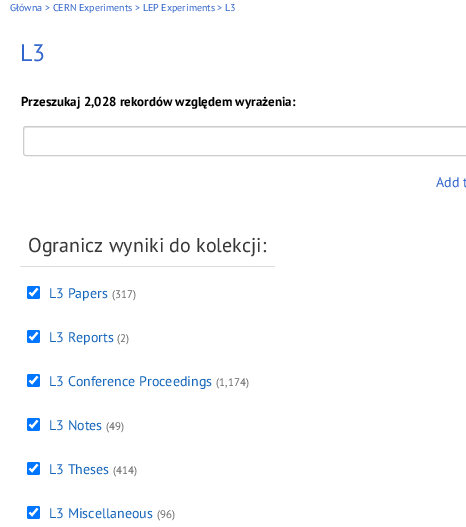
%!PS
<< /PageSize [466 527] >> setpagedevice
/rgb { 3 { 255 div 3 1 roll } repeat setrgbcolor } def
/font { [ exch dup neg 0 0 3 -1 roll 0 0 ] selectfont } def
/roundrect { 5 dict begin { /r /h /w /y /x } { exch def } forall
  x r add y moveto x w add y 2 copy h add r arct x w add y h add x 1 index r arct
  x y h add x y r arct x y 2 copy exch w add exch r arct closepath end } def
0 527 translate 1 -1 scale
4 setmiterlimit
255 255 255 rgb
0 0 466 527 rectfill
236 236 236 rgb
26 128 moveto 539 128 lineto 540 128 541 129 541 130 curveto 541 129 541 127 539 127 curveto 26 127 lineto 24 128 lineto 24 130 lineto 24 129 25 128 26 128 curveto closepath fill
204 204 204 rgb
23.5 126.5 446 29 2.5 roundrect stroke
221 221 221 rgb
20 266 255 1 rectfill
0 117 255 rgb
27 286 13 13 2 roundrect fill
255 255 255 rgb
2.1 setlinewidth
29.5 292.5 moveto 32 295 lineto 37.5 288.5 lineto stroke
0 117 255 rgb
27 330 13 13 2 roundrect fill
255 255 255 rgb
29.5 336.5 moveto 32 339 lineto 37.5 332.5 lineto stroke
0 117 255 rgb
27 374 13 13 2 roundrect fill
255 255 255 rgb
29.5 380.5 moveto 32 383 lineto 37.5 376.5 lineto stroke
0 117 255 rgb
27 418 13 13 2 roundrect fill
255 255 255 rgb
29.5 424.5 moveto 32 427 lineto 37.5 420.5 lineto stroke
0 117 255 rgb
27 462 13 13 2 roundrect fill
255 255 255 rgb
29.5 468.5 moveto 32 471 lineto 37.5 464.5 lineto stroke
0 117 255 rgb
27 506 13 13 2 roundrect fill
255 255 255 rgb
29.5 512.5 moveto 32 515 lineto 37.5 508.5 lineto stroke
/PTSans-Regular 10 font
51 102 204 rgb
10 11 moveto (Główna > CERN Experiments > LEP Experiments > L3) show
/PTSans-Regular 24 font
20 61 moveto (L3) show
/PTSans-Bold 13 font
0 0 0 rgb
21 106 moveto (Przeszukaj 2,028 rekordów względem wyrażenia:) show
/PTSans-Regular 14 font
51 102 204 rgb
436 187 moveto (Add t) show
/PTSans-Regular 20 font
56 56 56 rgb
28 252 moveto (Ogranicz wyniki do kolekcji:) show
/PTSans-Regular 14 font
21 101 186 rgb
49 298 moveto (L3 Papers) show
/PTSans-Regular 11 font
102 102 102 rgb
112 298 moveto (\(317\)) show
/PTSans-Regular 14 font
21 101 186 rgb
49 342 moveto (L3 Reports) show
/PTSans-Regular 11 font
102 102 102 rgb
117 342 moveto (\(2\)) show
/PTSans-Regular 14 font
21 101 186 rgb
49 386 moveto (L3 Conference Proceedings) show
/PTSans-Regular 11 font
102 102 102 rgb
216 386 moveto (\(1,174\)) show
/PTSans-Regular 14 font
21 101 186 rgb
49 430 moveto (L3 Notes) show
/PTSans-Regular 11 font
102 102 102 rgb
106 430 moveto (\(49\)) show
/PTSans-Regular 14 font
21 101 186 rgb
49 474 moveto (L3 Theses) show
/PTSans-Regular 11 font
102 102 102 rgb
113 474 moveto (\(414\)) show
/PTSans-Regular 14 font
21 101 186 rgb
49 518 moveto (L3 Miscellaneous) show
/PTSans-Regular 11 font
102 102 102 rgb
157 518 moveto (\(96\)) show
showpage
